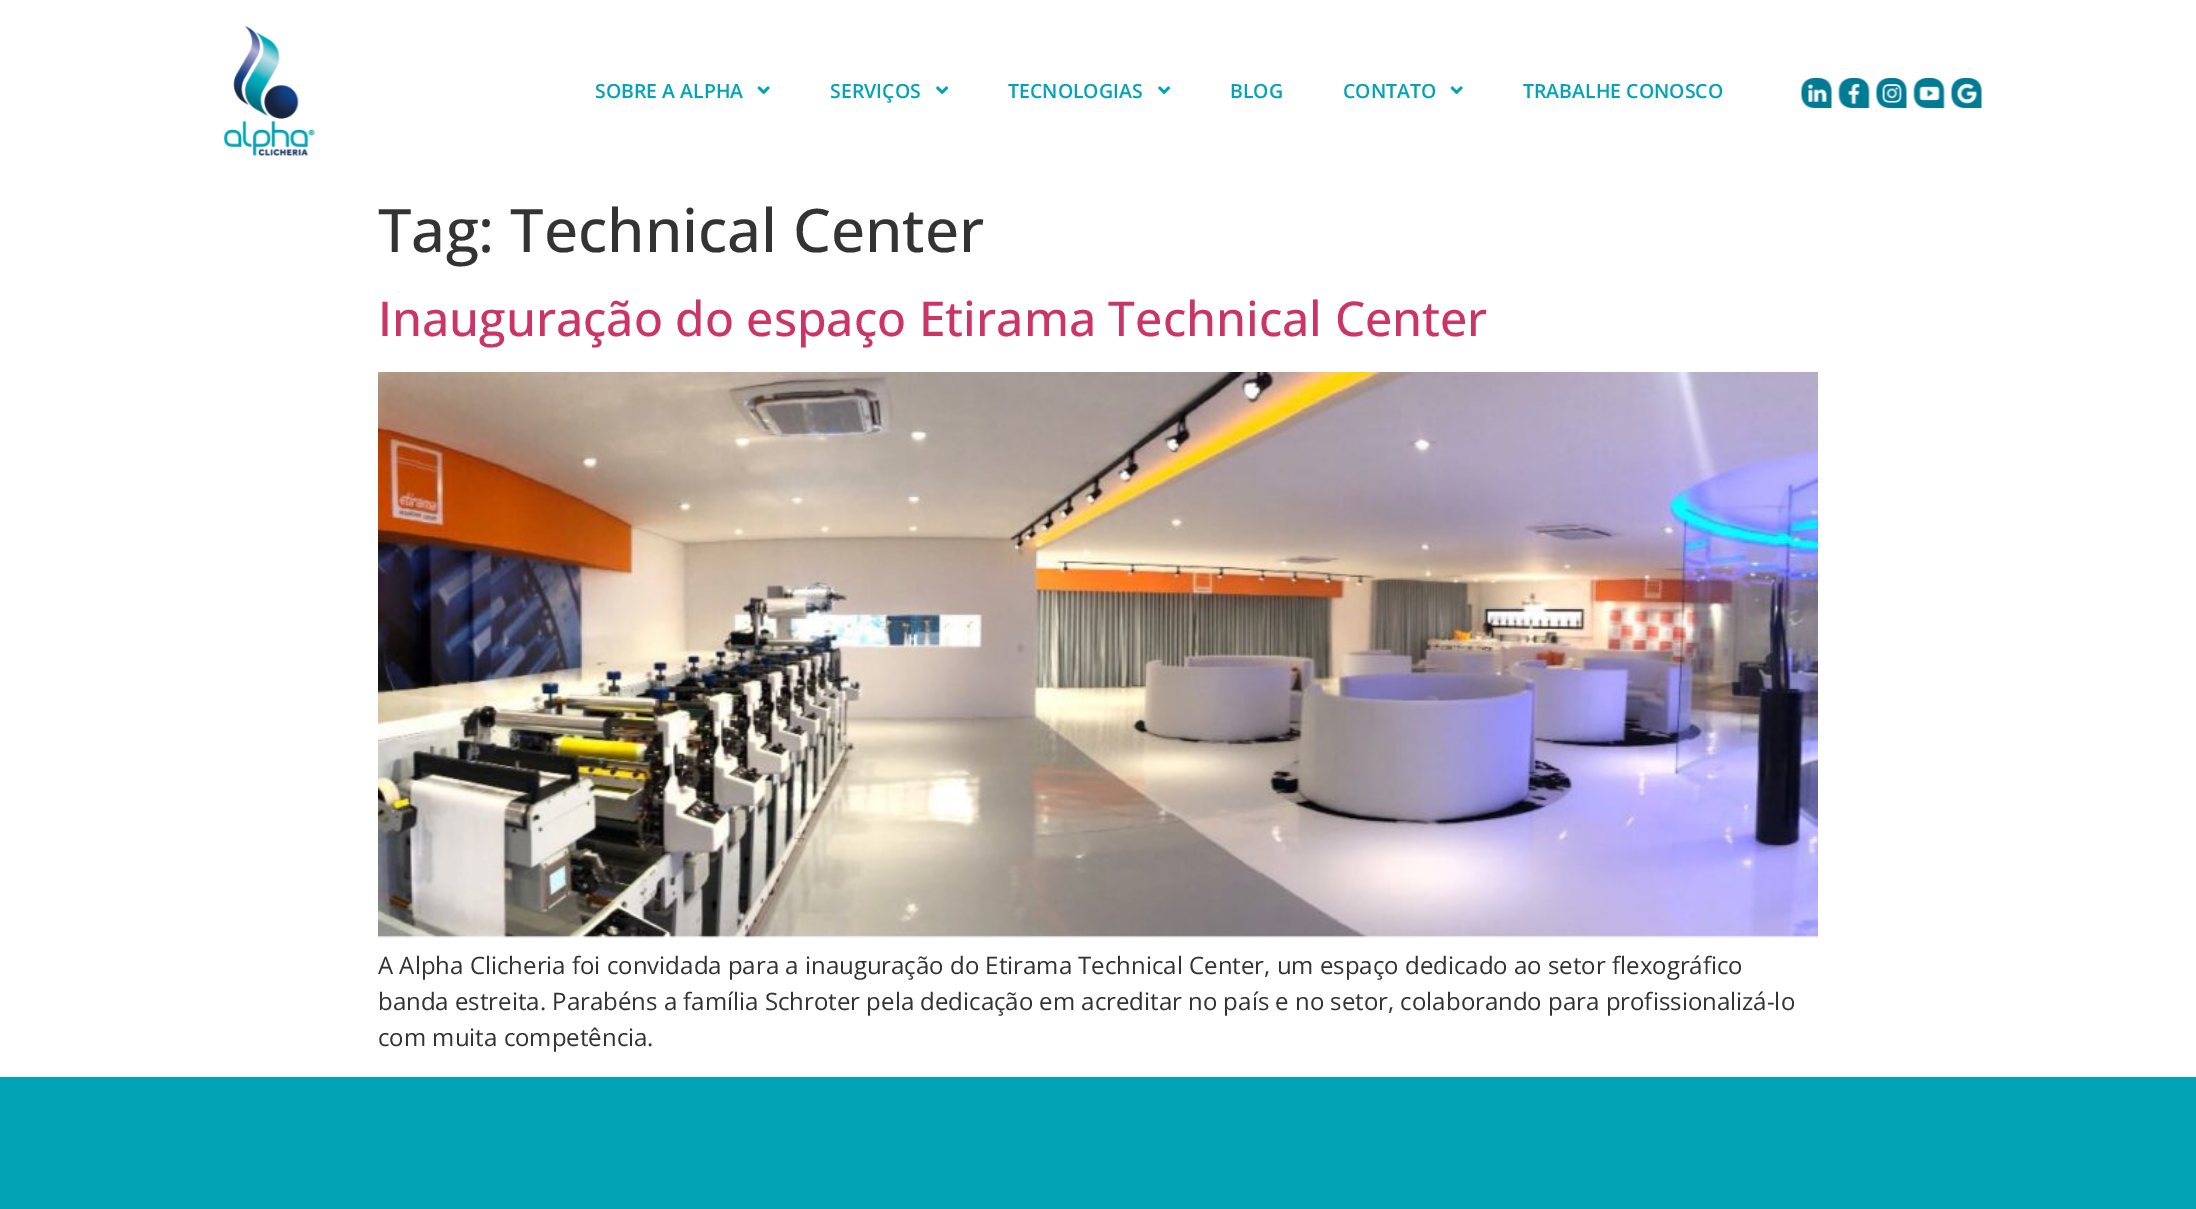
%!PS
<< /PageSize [2196 1209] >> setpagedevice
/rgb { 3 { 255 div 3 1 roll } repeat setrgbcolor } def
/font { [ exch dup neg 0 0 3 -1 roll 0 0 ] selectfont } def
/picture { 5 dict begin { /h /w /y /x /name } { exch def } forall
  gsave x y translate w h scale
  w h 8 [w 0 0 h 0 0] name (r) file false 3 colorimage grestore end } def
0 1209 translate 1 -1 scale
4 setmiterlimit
255 255 255 rgb
0 0 2196 1209 rectfill
(img/1.rgb) 224 26 92 130 picture
(img/2.rgb) 757 86 13 9 picture
(img/3.rgb) 936 86 13 9 picture
(img/3.rgb) 1158 86 13 9 picture
(img/2.rgb) 1450 86 13 9 picture
(img/4.rgb) 1801 78 31 30 picture
(img/5.rgb) 1838 78 32 30 picture
(img/6.rgb) 1876 78 31 30 picture
(img/7.rgb) 1913 78 32 30 picture
(img/8.rgb) 1951 78 31 30 picture
(img/9.rgb) 378 372 1440 566 picture
0 164 181 rgb
0 1077 2196 132 rectfill
/OpenSans-SemiBold 19.5 font
[
  [(SOBRE A ALPHA) 595 98]
  [(SERVIÇOS) 830 98]
  [(TECNOLOGIAS) 1008 98]
  [(BLOG) 1230 98]
  [(CONTATO) 1343 98]
  [(TRABALHE CONOSCO) 1523 98]
] { aload pop moveto show } forall
/OpenSans-Medium 60 font
51 51 51 rgb
378 252 moveto (Tag: Technical Center) show
/OpenSans-Medium 48 font
204 51 102 rgb
378 336 moveto (Inauguração do espaço Etirama Technical Center) show
/OpenSans-Regular 24 font
51 51 51 rgb
[
  [(A Alpha Clicheria foi convidada para a inauguração do Etirama Technical Center, um espaço dedicado ao setor flexográfico) 378 974]
  [(banda estreita. Parabéns a família Schroter pela dedicação em acreditar no país e no setor, colaborando para profissionalizá-lo) 378 1010]
  [(com muita competência.) 378 1046]
] { aload pop moveto show } forall
showpage
